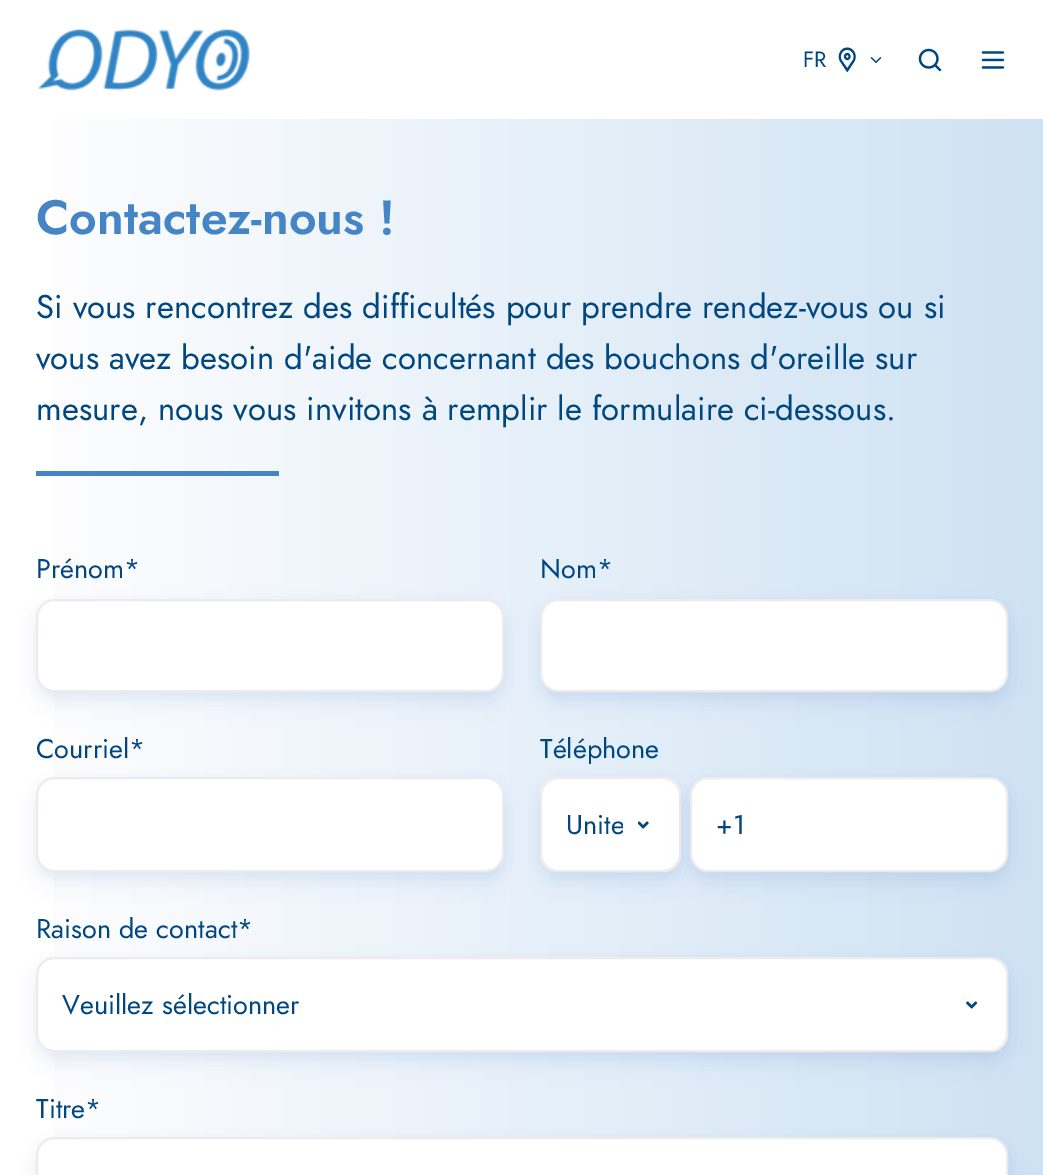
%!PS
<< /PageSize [1043 1175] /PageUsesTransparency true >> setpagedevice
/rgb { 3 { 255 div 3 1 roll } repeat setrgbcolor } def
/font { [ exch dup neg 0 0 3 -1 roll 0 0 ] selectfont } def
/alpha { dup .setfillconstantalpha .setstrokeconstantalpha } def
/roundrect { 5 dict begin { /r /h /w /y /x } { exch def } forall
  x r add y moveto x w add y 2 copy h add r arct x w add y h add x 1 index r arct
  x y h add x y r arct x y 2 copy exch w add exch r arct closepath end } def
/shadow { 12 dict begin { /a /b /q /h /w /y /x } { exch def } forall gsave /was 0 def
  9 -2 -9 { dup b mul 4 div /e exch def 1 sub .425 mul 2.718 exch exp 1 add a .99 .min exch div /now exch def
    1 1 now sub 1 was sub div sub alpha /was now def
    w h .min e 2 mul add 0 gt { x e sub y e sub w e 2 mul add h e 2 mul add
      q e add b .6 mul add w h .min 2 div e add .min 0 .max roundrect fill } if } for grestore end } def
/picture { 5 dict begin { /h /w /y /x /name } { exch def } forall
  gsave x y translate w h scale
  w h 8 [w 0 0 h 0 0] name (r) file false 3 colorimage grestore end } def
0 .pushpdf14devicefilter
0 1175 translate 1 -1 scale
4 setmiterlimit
255 255 255 rgb
0 0 1043 1175 rectfill
(img/1.rgb) 37 28 214 63 picture
(img/2.rgb) 838 47 18 25 picture
(img/3.rgb) 870 57 12 6 picture
(img/4.rgb) 918 48 24 24 picture
(img/5.rgb) 981 51 24 18 picture
gsave 54 119 moveto 1043 119 lineto 1043 1175 lineto 54 1175 lineto closepath clip newpath
<< /ShadingType 2 /ColorSpace /DeviceRGB /Coords [0 933 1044 933] /Extend [true true] /Function << /FunctionType 2 /Domain [0 1] /C0 [1 1 1] /C1 [0.812 0.886 0.953] /N 1 >> >> shfill grestore
70 133 197 rgb
36 471 243 5 rectfill
0 70 127 rgb
36 605 468 93 18 6 0.05 shadow
36 611 468 93 18 12 0.05 shadow
255 255 255 rgb
37 600 466 91 17 roundrect gsave fill grestore
237 235 235 rgb
2 setlinewidth
stroke
0 70 127 rgb
540 605 468 93 18 6 0.05 shadow
540 611 468 93 18 12 0.05 shadow
255 255 255 rgb
541 600 466 91 17 roundrect gsave fill grestore
237 235 235 rgb
stroke
0 70 127 rgb
36 783 468 95 18 6 0.05 shadow
36 789 468 95 18 12 0.05 shadow
255 255 255 rgb
37 778 466 93 17 roundrect gsave fill grestore
237 235 235 rgb
stroke
0 70 127 rgb
540 783 141 95 18 6 0.05 shadow
540 789 141 95 18 12 0.05 shadow
255 255 255 rgb
540 777 141 95 18 roundrect fill
(img/6.rgb) 638 821 11 8 picture
237 235 235 rgb
541 778 139 93 17 roundrect stroke
0 70 127 rgb
690 783 318 95 18 6 0.05 shadow
690 789 318 95 18 12 0.05 shadow
255 255 255 rgb
691 778 316 93 17 roundrect gsave fill grestore
237 235 235 rgb
stroke
0 70 127 rgb
36 963 972 95 18 6 0.05 shadow
36 969 972 95 18 12 0.05 shadow
255 255 255 rgb
36 957 972 95 18 roundrect fill
(img/7.rgb) 966 1001 11 8 picture
237 235 235 rgb
37 958 970 93 17 roundrect stroke
0 70 127 rgb
36 1143 972 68 18 6 0.05 shadow
36 1149 972 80 18 12 0.05 shadow
255 255 255 rgb
37 1138 970 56 17 roundrect gsave fill grestore
237 235 235 rgb
stroke
/Jost-Regular 22 font
0 70 127 rgb
803 67 moveto (FR) show
/Jost-SemiBold 48 font
70 133 197 rgb
36 234 moveto (Contactez-nous !) show
/Jost-Regular 32.95 font
0 70 127 rgb
[
  [(Si vous rencontrez des difficultés pour prendre rendez-vous ou si) 36 318]
  [(vous avez besoin d'aide concernant des bouchons d'oreille sur) 36 369]
  [(mesure, nous vous invitons à remplir le formulaire ci-dessous.) 36 420]
] { aload pop moveto show } forall
/Jost-Regular 27 font
[
  [(Prénom*) 36 578]
  [(Nom*) 540 578]
  [(Courriel*) 36 758]
  [(Téléphone) 540 758]
] { aload pop moveto show } forall
gsave
566 804 57 42 rectclip
566 834 moveto (Unite) show
grestore
[
  [(+1) 716 834]
  [(Raison de contact*) 36 938]
  [(Veuillez sélectionner) 62 1014]
  [(Titre*) 36 1118]
] { aload pop moveto show } forall
.poppdf14devicefilter showpage
